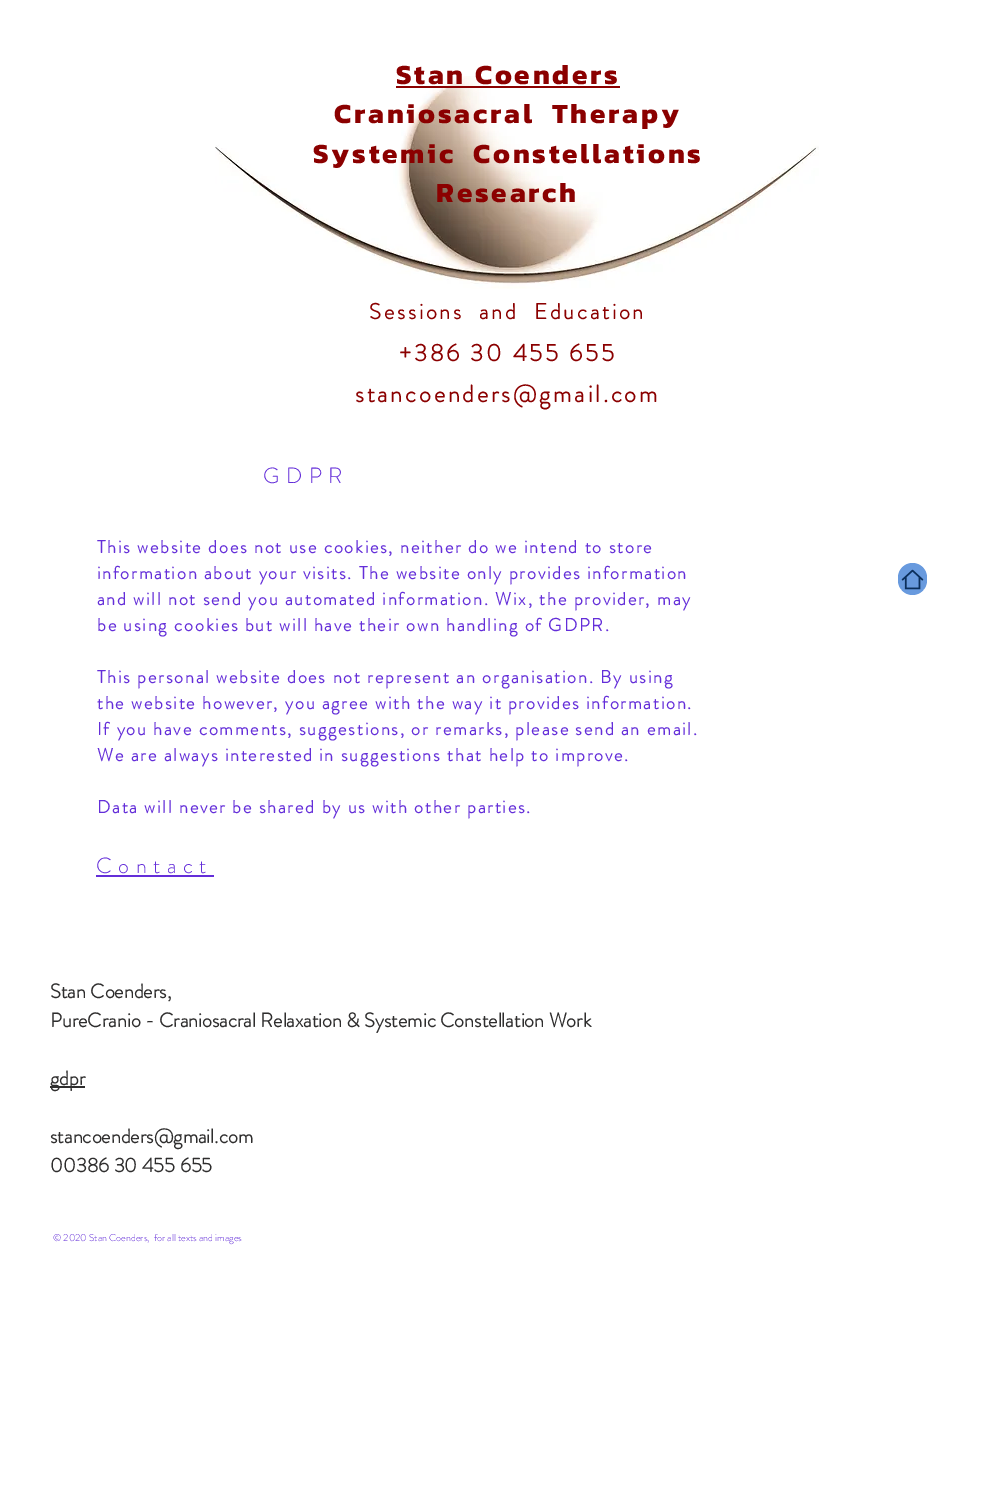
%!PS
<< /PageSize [1006 1511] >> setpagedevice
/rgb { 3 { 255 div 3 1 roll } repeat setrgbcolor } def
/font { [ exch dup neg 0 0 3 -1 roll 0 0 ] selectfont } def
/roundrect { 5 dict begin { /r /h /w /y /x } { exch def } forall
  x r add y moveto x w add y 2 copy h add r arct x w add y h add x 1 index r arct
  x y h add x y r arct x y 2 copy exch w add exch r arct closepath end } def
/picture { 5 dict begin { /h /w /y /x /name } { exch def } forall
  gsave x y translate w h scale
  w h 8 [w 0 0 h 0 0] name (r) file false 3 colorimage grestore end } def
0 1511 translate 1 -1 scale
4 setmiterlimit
255 255 255 rgb
0 0 1006 1511 rectfill
(img/1.rgb) 215 76 604 213 picture
139 0 0 rgb
396 86 224 2 rectfill
104 154 222 rgb
898 563 29 32 14.5 roundrect fill
(img/2.rgb) 901 569 23 21 picture
100 46 217 rgb
96 875 118 2 rectfill
47 46 46 rgb
50 1086 35 2 rectfill
/Kanit-Bold 28 font
139 0 0 rgb
396 84 moveto 2.8 0 (Stan Coenders) ashow
334 123 moveto 2.8 0 (Craniosacral  Therapy) ashow
313 163 moveto 2.8 0 (Systemic  Constellations) ashow
436 202 moveto 2.8 0 (Research) ashow
/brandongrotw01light-Bold 22 font
369 319 moveto 2.8 0 (Sessions  and  Education) ashow
/brandongrotw01light-Bold 24 font
399 361 moveto 2.8 0 (+386 30 455 655) ashow
355 402 moveto 2.8 0 (stancoenders@gmail.com) ashow
/brandongrotw01light-Light 22 font
100 46 217 rgb
263 483 moveto 6.5 0 (GDPR) ashow
/brandongrotw01light-Bold 18 font
97 553 moveto 1.8 0 (This website does not use cookies, neither do we intend to store) ashow
97 579 moveto 1.8 0 (information about your visits. The website only provides information) ashow
97 605 moveto 1.8 0 (and will not send you automated information. Wix, the provider, may) ashow
97 631 moveto 1.8 0 (be using cookies but will have their own handling of GDPR.) ashow
97 683 moveto 1.8 0 (This personal website does not represent an organisation. By using) ashow
97 709 moveto 1.8 0 (the website however, you agree with the way it provides information.) ashow
97 735 moveto 1.8 0 (If you have comments, suggestions, or remarks, please send an email.) ashow
97 761 moveto 1.8 0 (We are always interested in suggestions that help to improve.) ashow
97 813 moveto 1.8 0 (Data will never be shared by us with other parties.) ashow
/brandongrotw01light-Light 22 font
96 873 moveto 6.5 0 (Contact) ashow
/brandongrotw01light-Bold 20 font
47 46 46 rgb
[
  [(Stan Coenders,) 50 998]
  [(PureCranio - Craniosacral Relaxation & Systemic Constellation Work) 50 1027]
  [(gdpr) 50 1085]
  [(stancoenders@gmail.com) 50 1143]
  [(00386 30 455 655) 50 1172]
] { aload pop moveto show } forall
/brandongrotw01light-Light 10 font
100 46 217 rgb
53 1241 moveto (© 2020 Stan Coenders,  for all texts and images) show
showpage
